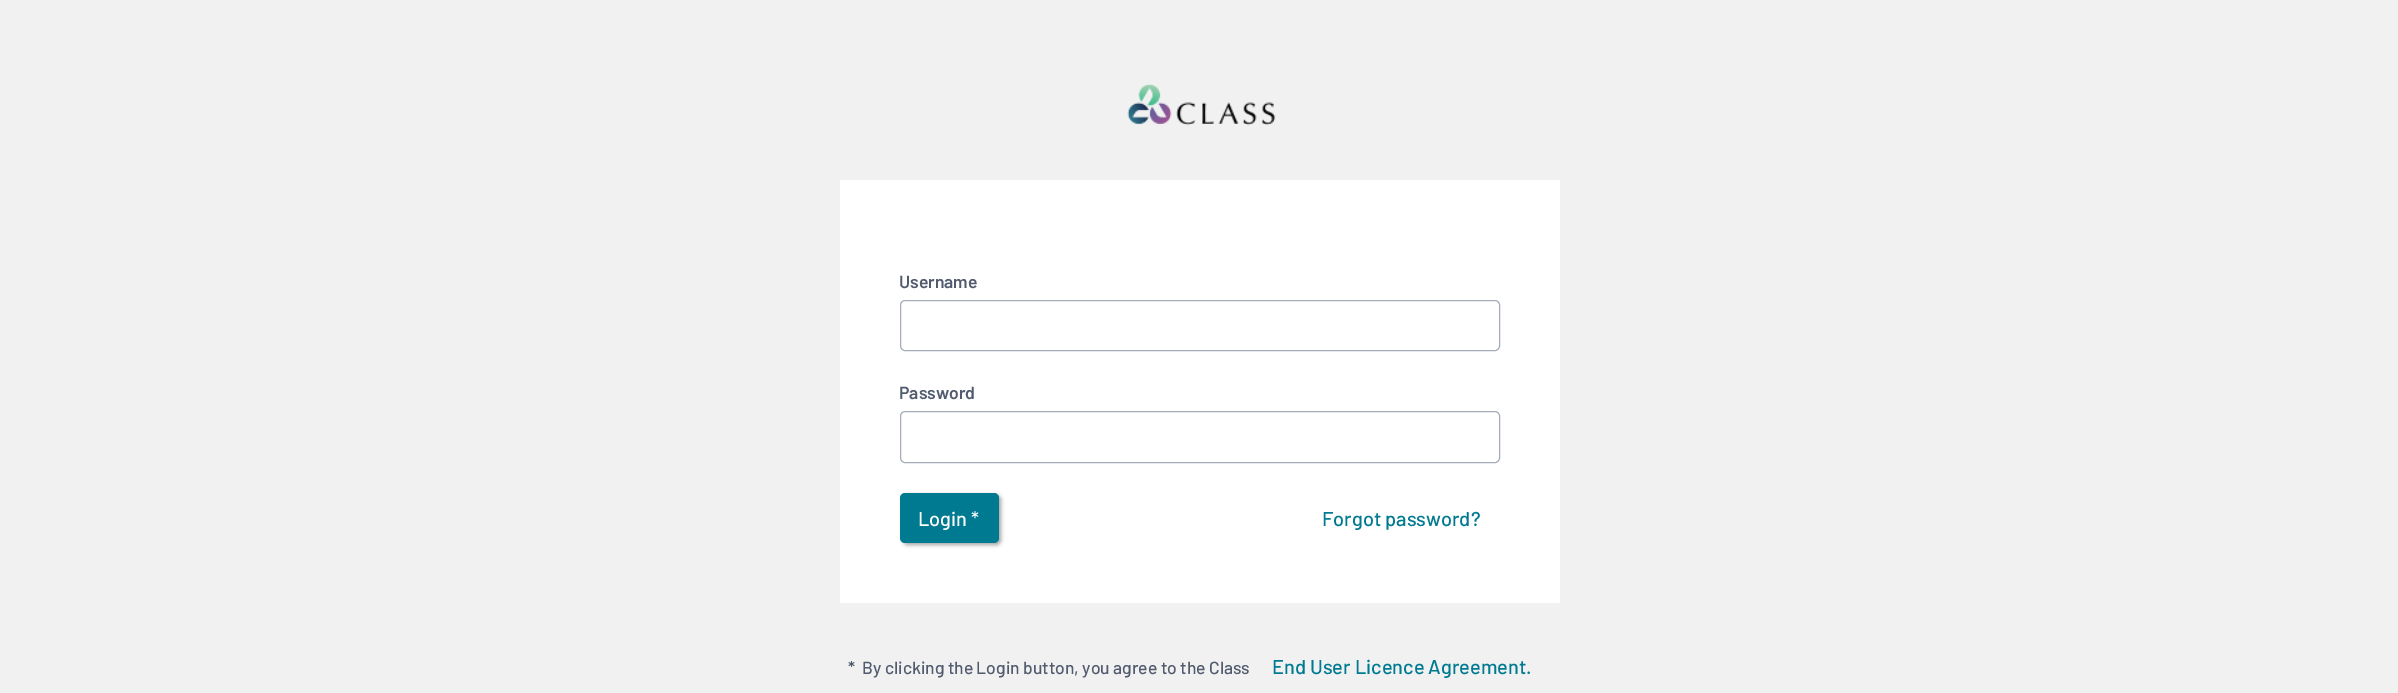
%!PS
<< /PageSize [2398 693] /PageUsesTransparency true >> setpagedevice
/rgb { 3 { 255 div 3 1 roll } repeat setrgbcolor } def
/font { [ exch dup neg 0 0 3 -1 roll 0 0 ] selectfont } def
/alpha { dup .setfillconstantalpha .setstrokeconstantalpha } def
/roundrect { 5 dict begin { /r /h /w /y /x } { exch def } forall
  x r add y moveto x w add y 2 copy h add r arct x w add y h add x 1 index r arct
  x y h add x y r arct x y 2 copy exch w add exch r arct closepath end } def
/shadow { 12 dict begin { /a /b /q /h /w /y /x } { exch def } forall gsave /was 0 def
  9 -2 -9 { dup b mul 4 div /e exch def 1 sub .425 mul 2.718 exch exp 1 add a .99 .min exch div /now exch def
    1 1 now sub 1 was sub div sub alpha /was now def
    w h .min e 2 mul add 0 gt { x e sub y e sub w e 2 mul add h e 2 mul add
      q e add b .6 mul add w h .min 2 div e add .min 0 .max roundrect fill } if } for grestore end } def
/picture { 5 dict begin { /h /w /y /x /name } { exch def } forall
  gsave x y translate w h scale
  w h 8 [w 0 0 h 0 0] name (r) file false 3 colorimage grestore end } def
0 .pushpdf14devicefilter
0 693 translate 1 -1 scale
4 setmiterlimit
241 241 241 rgb
0 0 2398 693 rectfill
(img/1.rgb) 1127 84 149 42 picture
255 255 255 rgb
840 180 720 423 rectfill
165 173 186 rgb
900.5 300.5 599 50 4.5 roundrect stroke
900.5 411.5 599 51 4.5 roundrect stroke
0 0 0 rgb
903 495 98 50 5 2 0.35 shadow
0 122 145 rgb
900 493 99 50 5 roundrect fill
/Barlow-SemiBold 17.5 font
81 91 109 rgb
899 288 moveto (Username) show
899 399 moveto (Password) show
/Barlow-Medium 20 font
255 255 255 rgb
918 526 moveto (Login *) show
0 122 145 rgb
1322 526 moveto (Forgot password?) show
/Barlow-SemiBold 17.5 font
81 91 109 rgb
848 674 moveto (*) show
/Barlow-Medium 17.5 font
862 674 moveto (By clicking the Login button, you agree to the Class) show
/Barlow-Medium 20 font
0 122 145 rgb
1272 674 moveto (End User Licence Agreement.) show
.poppdf14devicefilter showpage
